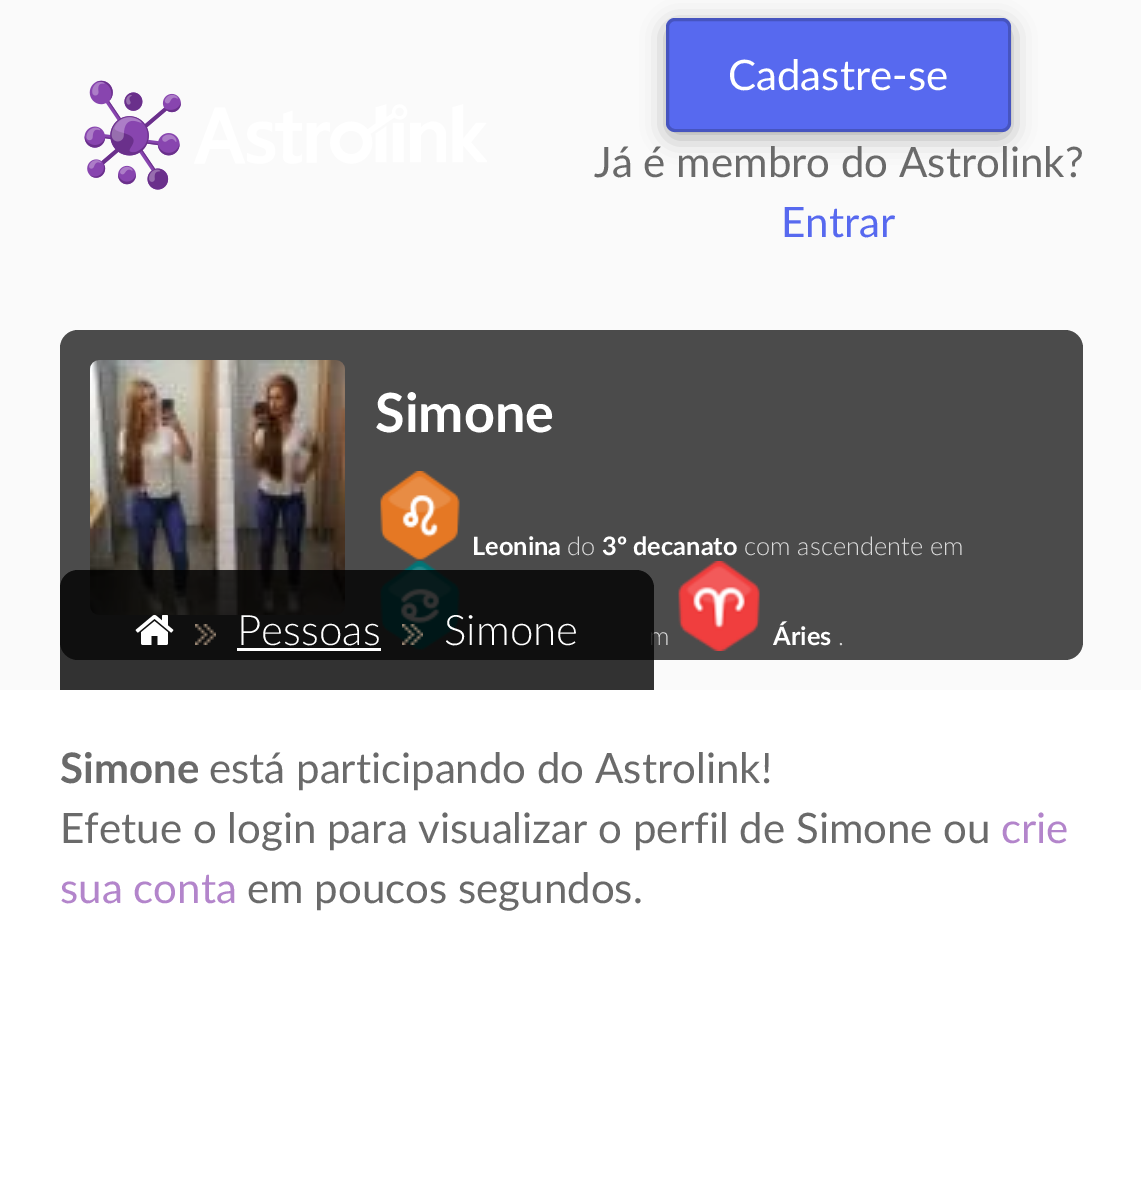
%!PS
<< /PageSize [1141 1178] /PageUsesTransparency true >> setpagedevice
/rgb { 3 { 255 div 3 1 roll } repeat setrgbcolor } def
/font { [ exch dup neg 0 0 3 -1 roll 0 0 ] selectfont } def
/alpha { dup .setfillconstantalpha .setstrokeconstantalpha } def
/roundrect { 5 dict begin { /r /h /w /y /x } { exch def } forall
  x r add y moveto x w add y 2 copy h add r arct x w add y h add x 1 index r arct
  x y h add x y r arct x y 2 copy exch w add exch r arct closepath end } def
/shadow { 12 dict begin { /a /b /q /h /w /y /x } { exch def } forall gsave /was 0 def
  9 -2 -9 { dup b mul 4 div /e exch def 1 sub .425 mul 2.718 exch exp 1 add a .99 .min exch div /now exch def
    1 1 now sub 1 was sub div sub alpha /was now def
    w h .min e 2 mul add 0 gt { x e sub y e sub w e 2 mul add h e 2 mul add
      q e add b .6 mul add w h .min 2 div e add .min 0 .max roundrect fill } if } for grestore end } def
/picture { 5 dict begin { /h /w /y /x /name } { exch def } forall
  gsave x y translate w h scale
  w h 8 [w 0 0 h 0 0] name (r) file false 3 colorimage grestore end } def
0 .pushpdf14devicefilter
0 1178 translate 1 -1 scale
4 setmiterlimit
250 250 250 rgb
0 0 1141 1178 rectfill
(img/1.rgb) 84 80 403 110 picture
0 0 0 rgb
666 24 345 114 9 12 0.3 shadow
87 105 239 rgb
666 18 345 114 9 roundrect fill
0.2 alpha
0 0 0 rgb
3 setlinewidth
667.5 19.5 342 111 7.5 roundrect stroke
1 alpha
75 75 75 rgb
60 330 1023 330 18 roundrect fill
(img/2.rgb) 90 360 255 255 picture
(img/3.rgb) 380 471 80 89 picture
(img/4.rgb) 380 561 80 89 picture
(img/5.rgb) 678 561 82 90 picture
255 255 255 rgb
0 690 1141 488 rectfill
/Lato-Regular 42 font
728 90 moveto (Cadastre-se) show
106 106 106 rgb
594 177 moveto (Já é membro do Astrolink?) show
87 105 239 rgb
781 237 moveto (Entrar) show
/Lato-Bold 54 font
255 255 255 rgb
375 432 moveto (Simone) show
/Lato-Bold 25.4 font
472 555 moveto (Leonina) show
/Lato-Light 25.4 font
219 219 219 rgb
567 555 moveto (do) show
/Lato-Bold 25.4 font
255 255 255 rgb
602 555 moveto (3º decanato) show
/Lato-Light 25.4 font
219 219 219 rgb
744 555 moveto (com ascendente em) show
649 645 moveto (m) show
/Lato-Bold 25.4 font
255 255 255 rgb
773 645 moveto (Áries) show
/Lato-Light 25.4 font
219 219 219 rgb
838 645 moveto (.) show
0.8 alpha
0 0 0 rgb
78 570 moveto 636 570 lineto 646 570 654 578 654 588 curveto 654 690 lineto 60 690 lineto 60 588 lineto 60 578 68 570 78 570 curveto closepath fill
1 alpha
(img/6.rgb) 135 614 39 31 picture
(img/7.rgb) 195 624 21 21 picture
/Lato-Light 42 font
255 255 255 rgb
237 645 moveto (Pessoas) show
237 648 144 3 rectfill
(img/8.rgb) 402 624 21 21 picture
444 645 moveto (Simone) show
/Lato-Bold 42 font
106 106 106 rgb
60 783 moveto (Simone) show
/Lato-Regular 42 font
209 783 moveto (está participando do Astrolink!) show
60 843 moveto (Efetue o login para visualizar o perfil de Simone ou) show
179 133 203 rgb
1001 843 moveto (crie) show
60 903 moveto (sua conta) show
106 106 106 rgb
247 903 moveto (em poucos segundos.) show
.poppdf14devicefilter showpage
